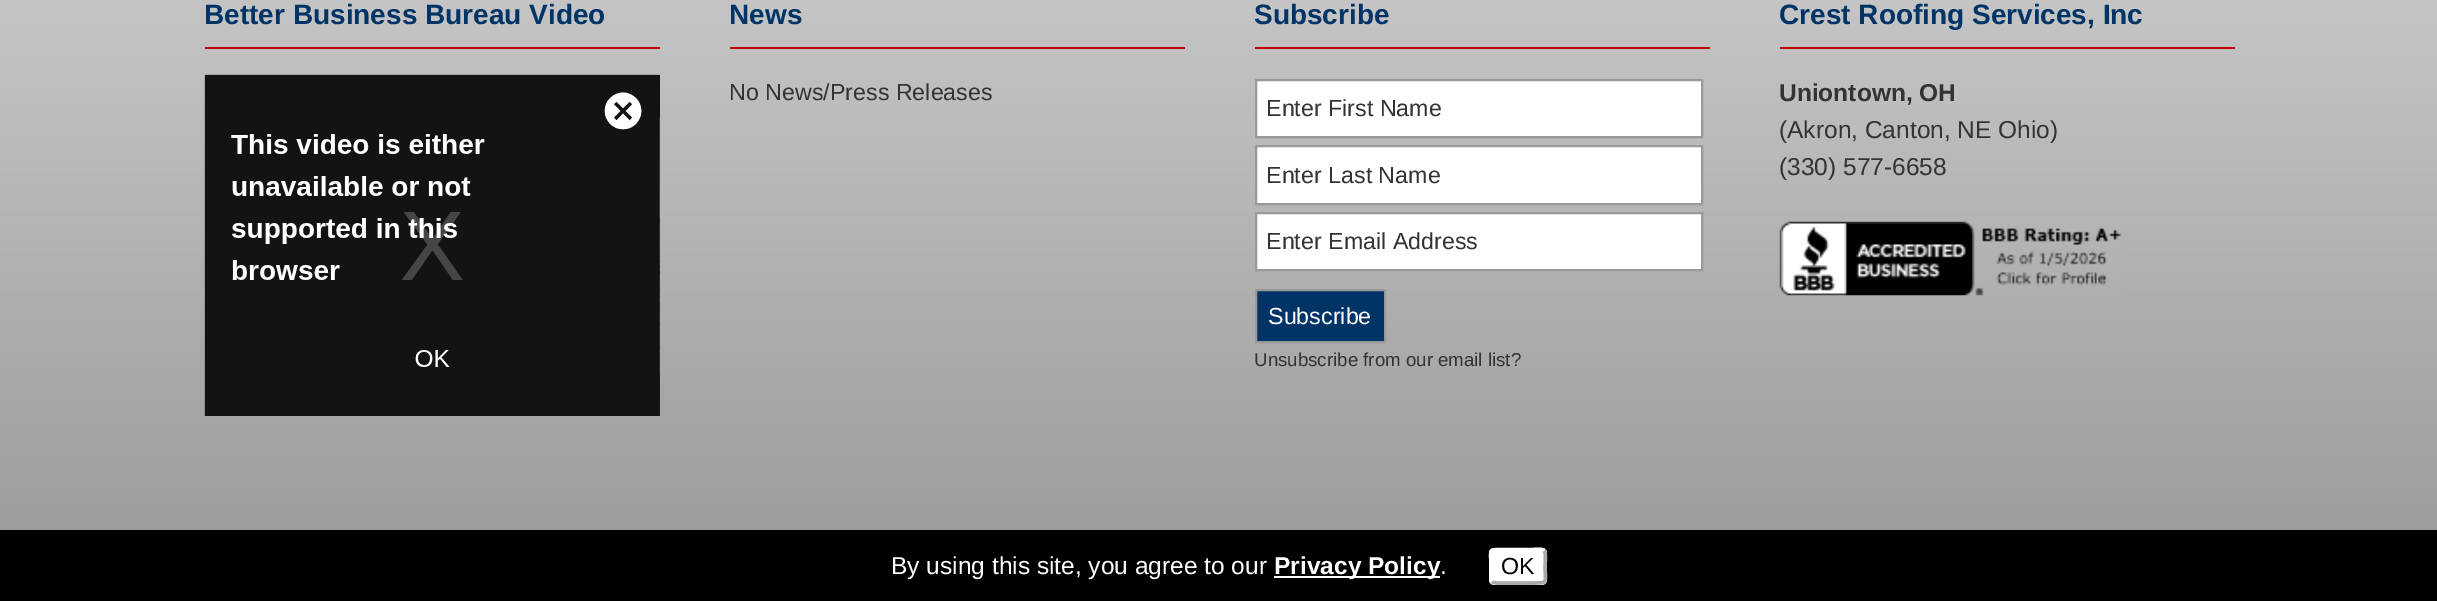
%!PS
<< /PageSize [2437 601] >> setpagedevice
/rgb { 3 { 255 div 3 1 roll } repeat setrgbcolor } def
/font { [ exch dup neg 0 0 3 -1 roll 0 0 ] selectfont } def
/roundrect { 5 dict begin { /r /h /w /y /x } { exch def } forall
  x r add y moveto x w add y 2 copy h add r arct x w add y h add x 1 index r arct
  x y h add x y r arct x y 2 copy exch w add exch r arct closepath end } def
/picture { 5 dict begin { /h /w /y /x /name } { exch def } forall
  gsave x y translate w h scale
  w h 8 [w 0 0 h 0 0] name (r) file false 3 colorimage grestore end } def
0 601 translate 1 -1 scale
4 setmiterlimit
255 255 255 rgb
0 0 2437 601 rectfill
gsave 0 0 moveto 2437 0 lineto 2437 530 lineto 0 530 lineto closepath clip newpath
<< /ShadingType 2 /ColorSpace /DeviceRGB /Coords [1219 -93 1219 590] /Extend [true true] /Function << /FunctionType 2 /Domain [0 1] /C0 [0.8 0.8 0.8] /C1 [0.6 0.6 0.6] /N 1 >> >> shfill grestore
192 0 6 rgb
205 47 455 2 rectfill
(img/1.rgb) 204 74 456 342 picture
730 47 455 2 rectfill
1255 47 455 2 rectfill
255 255 255 rgb
1256 80 moveto 1702 80 lineto 1702 137 lineto 1256 137 lineto closepath gsave fill grestore
153 153 153 rgb
2 setlinewidth
stroke
255 255 255 rgb
1256 146 moveto 1702 146 lineto 1702 204 lineto 1256 204 lineto closepath gsave fill grestore
153 153 153 rgb
stroke
255 255 255 rgb
1256 213 moveto 1702 213 lineto 1702 270 lineto 1256 270 lineto closepath gsave fill grestore
153 153 153 rgb
stroke
0 51 102 rgb
1256 290 moveto 1385 290 lineto 1385 342 lineto 1256 342 lineto closepath gsave fill grestore
153 153 153 rgb
stroke
192 0 6 rgb
1780 47 455 2 rectfill
(img/2.rgb) 1779 221 343 75 picture
0 0 0 rgb
0 530 2437 71 rectfill
255 255 255 rgb
1274 576 166 2 rectfill
1489 548 58 37 5 roundrect fill
170 170 170 rgb
3.5 setlinewidth
1544 550.5 moveto 1546.5 553 1545 563 1545 566 curveto 1545 582.5 1549 583 1534 583 curveto 1502.5 583 lineto 1501 583 1494.5 584 1492 581.5 curveto stroke
255 255 255 rgb
1492 581.5 moveto 1490 579.5 1491 569 1491 566 curveto 1491 550 1487.5 549.5 1502.5 549.5 curveto 1534 549.5 lineto 1535 549.5 1542 548.5 1544 550.5 curveto stroke
/LiberationSans-Bold 28 font
0 51 102 rgb
204 24 moveto (Better Business Bureau Video) show
729 24 moveto (News) show
/LiberationSans-Regular 23.25 font
51 51 51 rgb
729 100 moveto (No News/Press Releases) show
/LiberationSans-Bold 28 font
0 51 102 rgb
1254 24 moveto (Subscribe) show
/LiberationSans-Regular 23.25 font
51 51 51 rgb
[
  [(Enter First Name) 1266 116]
  [(Enter Last Name) 1266 183]
  [(Enter Email Address) 1266 249]
] { aload pop moveto show } forall
255 255 255 rgb
1268 324 moveto (Subscribe) show
/LiberationSans-Regular 18.7 font
51 51 51 rgb
1254 366 moveto (Unsubscribe from our email list?) show
/LiberationSans-Bold 28 font
0 51 102 rgb
1779 24 moveto (Crest Roofing Services, Inc) show
/LiberationSans-Bold 24.5 font
51 51 51 rgb
1779 101 moveto (Uniontown, OH) show
/LiberationSans-Regular 24.5 font
1779 138 moveto (\(Akron, Canton, NE Ohio\)) show
1779 175 moveto (\(330\) 577-6658) show
255 255 255 rgb
891 574 moveto (By using this site, you agree to our) show
/LiberationSans-Bold 24.5 font
1274 574 moveto (Privacy Policy) show
/LiberationSans-Regular 24.5 font
1440 574 moveto (.) show
/LiberationSans-Regular 23.25 font
0 0 0 rgb
1501 574 moveto (OK) show
showpage
